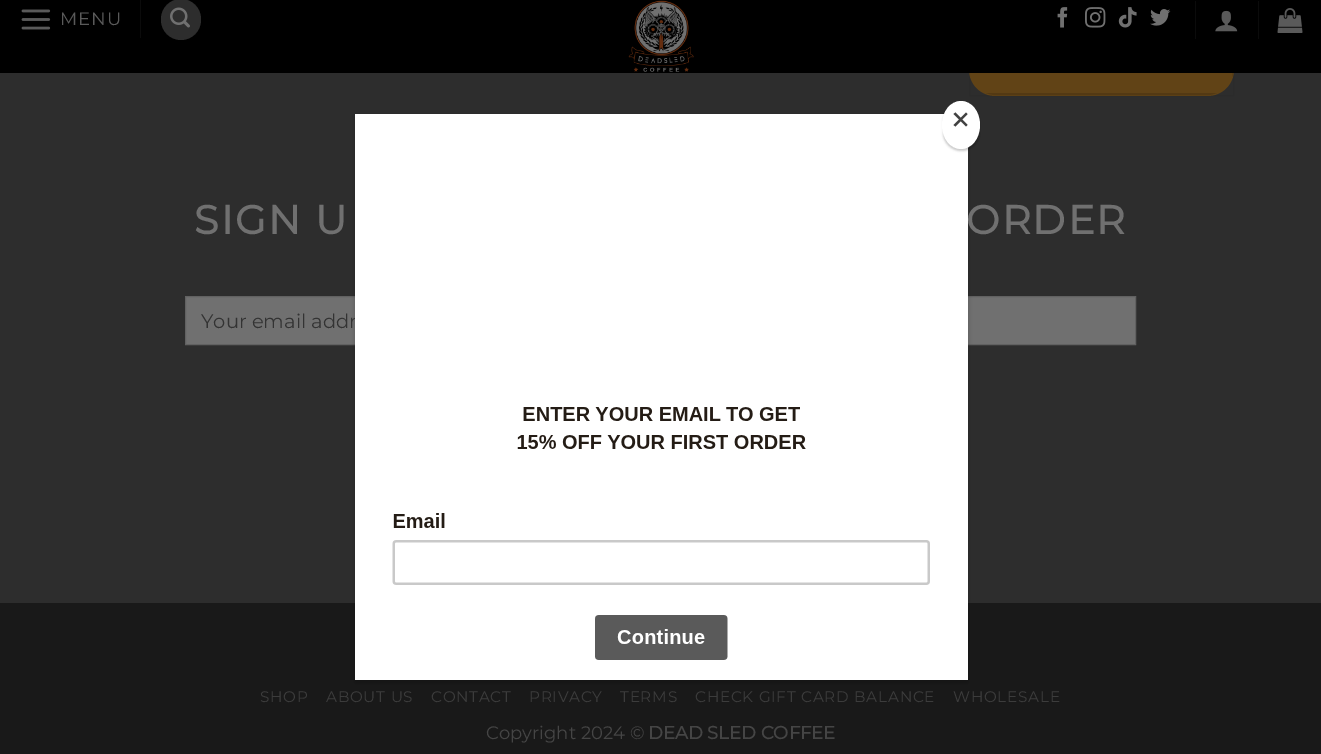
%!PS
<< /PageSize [1321 754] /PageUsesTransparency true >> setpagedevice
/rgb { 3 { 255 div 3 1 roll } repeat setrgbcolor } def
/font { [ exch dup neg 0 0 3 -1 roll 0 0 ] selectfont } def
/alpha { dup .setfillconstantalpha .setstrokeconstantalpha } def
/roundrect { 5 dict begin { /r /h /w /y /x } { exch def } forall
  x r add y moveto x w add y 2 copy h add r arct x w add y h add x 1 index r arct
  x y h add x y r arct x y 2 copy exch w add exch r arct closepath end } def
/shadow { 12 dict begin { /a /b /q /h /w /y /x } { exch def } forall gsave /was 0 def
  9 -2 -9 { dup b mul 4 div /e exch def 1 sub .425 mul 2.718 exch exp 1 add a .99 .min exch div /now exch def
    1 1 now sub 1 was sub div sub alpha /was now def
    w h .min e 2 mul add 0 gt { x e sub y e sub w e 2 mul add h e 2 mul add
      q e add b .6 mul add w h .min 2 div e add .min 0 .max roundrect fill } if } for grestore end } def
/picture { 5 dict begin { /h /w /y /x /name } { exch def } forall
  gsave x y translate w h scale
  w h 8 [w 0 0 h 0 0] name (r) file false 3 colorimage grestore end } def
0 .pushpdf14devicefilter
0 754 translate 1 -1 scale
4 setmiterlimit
45 45 45 rgb
0 0 1321 754 rectfill
97 67 22 rgb
969 43 265 53 26.5 roundrect fill
0.05 alpha
0 0 0 rgb
969.5 43.5 264 52 rectstroke
0.15 alpha
1232 62 moveto 1232 77 lineto 1233 72 1233 67 1232 62 curveto closepath 1217 93 moveto 986 93 lineto 989 94 992 95 996 95 curveto 1208 95 lineto 1211 95 1214 94 1217 93 curveto closepath eofill
1 alpha
0 0 1321 73 rectfill
(img/1.rgb) 21 9 30 21 picture
11 11 11 rgb
140 0 1 38 rectfill
45 45 45 rgb
161 -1 40 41 20 roundrect fill
(img/2.rgb) 170 7 20 21 picture
(img/3.rgb) 628 0 66 72 picture
(img/4.rgb) 1057 7 11 21 picture
(img/5.rgb) 1085 7 21 21 picture
(img/6.rgb) 1118 7 19 21 picture
(img/7.rgb) 1150 9 21 17 picture
11 11 11 rgb
1195 1 1 38 rectfill
(img/8.rgb) 1215 10 23 22 picture
1258 1 1 38 rectfill
(img/9.rgb) 1277 8 26 25 picture
112 112 112 rgb
185.5 296.5 moveto 1135.5 296.5 lineto 1135.5 344.5 lineto 185.5 344.5 lineto closepath gsave fill grestore
97 97 97 rgb
stroke
25 25 25 rgb
0 603 1321 151 rectfill
0 0 0 rgb
355 116 613 567 0 2.5 0.2 shadow
/Montserrat-Thin 18 font
90 90 90 rgb
60 25 moveto 1 0 (MENU) ashow
/Montserrat-Bold 40 font
112 112 112 rgb
194 234 moveto 2 0 (SIGN U) ashow
966 234 moveto 2 0 (ORDER) ashow
/Montserrat-Thin 19.5 font
51 51 51 rgb
201 328 moveto (Your email addr) show
/Montserrat-Thin 15.25 font
60 60 60 rgb
260 702 moveto 0.75 0 (SHOP) ashow
326 702 moveto 0.75 0 (ABOUT US) ashow
431 702 moveto 0.75 0 (CONTACT) ashow
529 702 moveto 0.75 0 (PRIVACY) ashow
620 702 moveto 0.75 0 (TERMS) ashow
695 702 moveto 0.75 0 (CHECK GIFT CARD BALANCE) ashow
953 702 moveto 0.75 0 (WHOLESALE) ashow
/Montserrat-Thin 18 font
69 69 69 rgb
486 739 moveto (Copyright 2024 ©) show
/Montserrat-Bold 18 font
648 739 moveto (DEAD SLED COFFEE) show
(img/10.rgb) 355 114 613 566 picture
0 0 0 rgb
943 104 37 47 18.5 1 0.2 shadow
255 255 255 rgb
961 101 moveto 971.5 101 980 111.5 980 125 curveto 980 138.5 971.5 149 961 149 curveto 950.5 149 942 138.5 942 125 curveto 942 111.5 950.5 101 961 101 curveto closepath fill
65 65 65 rgb
966 112.5 moveto 967.5 114 lineto 955.5 126.5 lineto 953.5 125 lineto closepath fill
953.5 114 moveto 955.5 112.5 lineto 967.5 125 lineto 966 126.5 lineto closepath fill
.poppdf14devicefilter showpage
